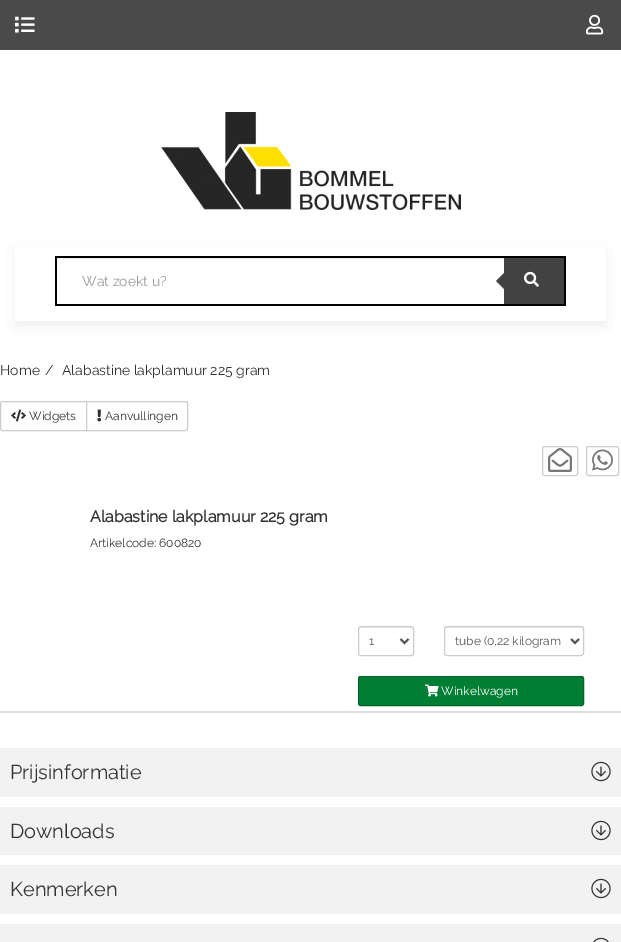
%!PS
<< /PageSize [621 942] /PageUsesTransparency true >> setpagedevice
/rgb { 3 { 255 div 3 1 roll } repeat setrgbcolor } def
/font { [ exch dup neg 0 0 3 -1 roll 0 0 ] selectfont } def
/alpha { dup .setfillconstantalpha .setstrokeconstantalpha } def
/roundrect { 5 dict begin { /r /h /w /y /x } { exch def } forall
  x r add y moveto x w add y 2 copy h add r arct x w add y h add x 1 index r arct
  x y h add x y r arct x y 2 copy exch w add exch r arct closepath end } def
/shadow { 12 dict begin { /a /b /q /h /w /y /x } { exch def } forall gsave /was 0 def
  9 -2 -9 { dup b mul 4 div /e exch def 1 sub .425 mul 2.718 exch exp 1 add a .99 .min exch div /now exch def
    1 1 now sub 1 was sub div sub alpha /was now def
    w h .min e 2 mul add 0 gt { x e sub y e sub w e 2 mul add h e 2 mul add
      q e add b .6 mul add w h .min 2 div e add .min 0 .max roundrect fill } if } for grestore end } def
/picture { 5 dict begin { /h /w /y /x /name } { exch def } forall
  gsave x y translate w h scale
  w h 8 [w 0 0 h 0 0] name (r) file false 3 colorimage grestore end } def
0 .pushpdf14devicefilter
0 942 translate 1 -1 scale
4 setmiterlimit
255 255 255 rgb
0 0 621 942 rectfill
74 74 74 rgb
0 0 621 50 rectfill
(img/1.rgb) 15 16 20 17 picture
(img/2.rgb) 586 14 18 21 picture
(img/3.rgb) 161 112 300 98 picture
gsave
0 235 moveto 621 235 lineto 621 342 lineto 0 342 lineto closepath 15 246 moveto 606 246 lineto 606 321 lineto 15 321 lineto closepath eoclip newpath
238 238 238 rgb
15 251 591 75 0 5 1 shadow
grestore
[
  [57 258 447 1 236 236 236]
  [55 256 511 2 0 0 0]
  [55 304 449 2 0 0 0]
  [55 256 2 50 0 0 0]
  [504 258 60 46 66 66 66]
  [564 256 2 50 0 0 0]
  [504 304 62 2 0 0 0]
] { aload pop rgb rectfill } forall
66 66 66 rgb
504 273 moveto 504 289 lineto 496 281 lineto closepath fill
(img/4.rgb) 524 271 15 16 picture
204 204 204 rgb
2.5 401.5 moveto 86.5 401.5 lineto 86.5 430.5 lineto 2.5 430.5 lineto 1.5 430.5 0.5 429.5 0.5 428.5 curveto 0.5 403.5 lineto 0.5 402.5 1.5 401.5 2.5 401.5 curveto closepath stroke
(img/5.rgb) 11 409 15 13 picture
255 255 255 rgb
86.5 401.5 moveto 185.5 401.5 lineto 186.5 401.5 187.5 402.5 187.5 403.5 curveto 187.5 428.5 lineto 187.5 429.5 186.5 430.5 185.5 430.5 curveto 86.5 430.5 lineto closepath gsave fill grestore
204 204 204 rgb
stroke
(img/6.rgb) 97 409 5 13 picture
542.5 446.5 35 29 2 roundrect stroke
(img/7.rgb) 548 448 24 24 picture
586.5 446.5 32 29 2 roundrect stroke
(img/8.rgb) 592 449 21 22 picture
221 221 221 rgb
0 711 621 2 rectfill
236 236 236 rgb
361 628 moveto 411 628 lineto 412 628 413 629 413 630 curveto 413 625 407 627 403 627 curveto 369 627 lineto 365 627 359 625 359 630 curveto 359 629 360 628 361 628 curveto closepath fill
204 204 204 rgb
358.5 626.5 55 29 2.5 roundrect stroke
85 85 85 rgb
2 setlinewidth
400.5 639 moveto 404.5 643 lineto 408.5 639 lineto stroke
236 236 236 rgb
447 628 moveto 581 628 lineto 582 628 583 629 583 630 curveto 583 629 583 627 581 627 curveto 447 627 lineto 445 627 445 629 445 630 curveto 445 629 446 628 447 628 curveto closepath fill
204 204 204 rgb
1 setlinewidth
444.5 626.5 139 29 2.5 roundrect stroke
85 85 85 rgb
2 setlinewidth
571 639 moveto 575 643 lineto 579 639 lineto stroke
0 126 51 rgb
358.5 676.5 225 29 2 roundrect gsave fill grestore
0 101 41 rgb
1 setlinewidth
stroke
(img/9.rgb) 425 684 14 13 picture
242 242 242 rgb
0 748 621 49 rectfill
(img/10.rgb) 591 761 20 21 picture
0 807 621 48 rectfill
(img/10.rgb) 591 820 20 21 picture
0 865 621 49 rectfill
(img/10.rgb) 591 878 20 21 picture
0 924 621 18 rectfill
(img/11.rgb) 593 937 16 5 picture
/Raleway-Thin 14 font
153 153 153 rgb
82 286 moveto (Wat zoekt u?) show
51 51 51 rgb
[
  [(Home) 0 375]
  [(/) 45 375]
  [(Alabastine lakplamuur 225 gram) 62 375]
] { aload pop moveto show } forall
/Raleway-Thin 12 font
29 420 moveto (Widgets) show
105 420 moveto (Aanvullingen) show
/Raleway-Bold 16 font
90 522 moveto (Alabastine lakplamuur 225 gram) show
/Raleway-Thin 12 font
90 547 moveto (Artikelcode: 600820) show
85 85 85 rgb
369 645 moveto (1) show
455 645 moveto (tube \(0,22 kilogram) show
255 255 255 rgb
441 695 moveto (Winkelwagen) show
/Raleway-Thin 20 font
51 51 51 rgb
[
  [(Prijsinformatie) 10 779]
  [(Downloads) 10 838]
  [(Kenmerken) 10 896]
] { aload pop moveto show } forall
.poppdf14devicefilter showpage
